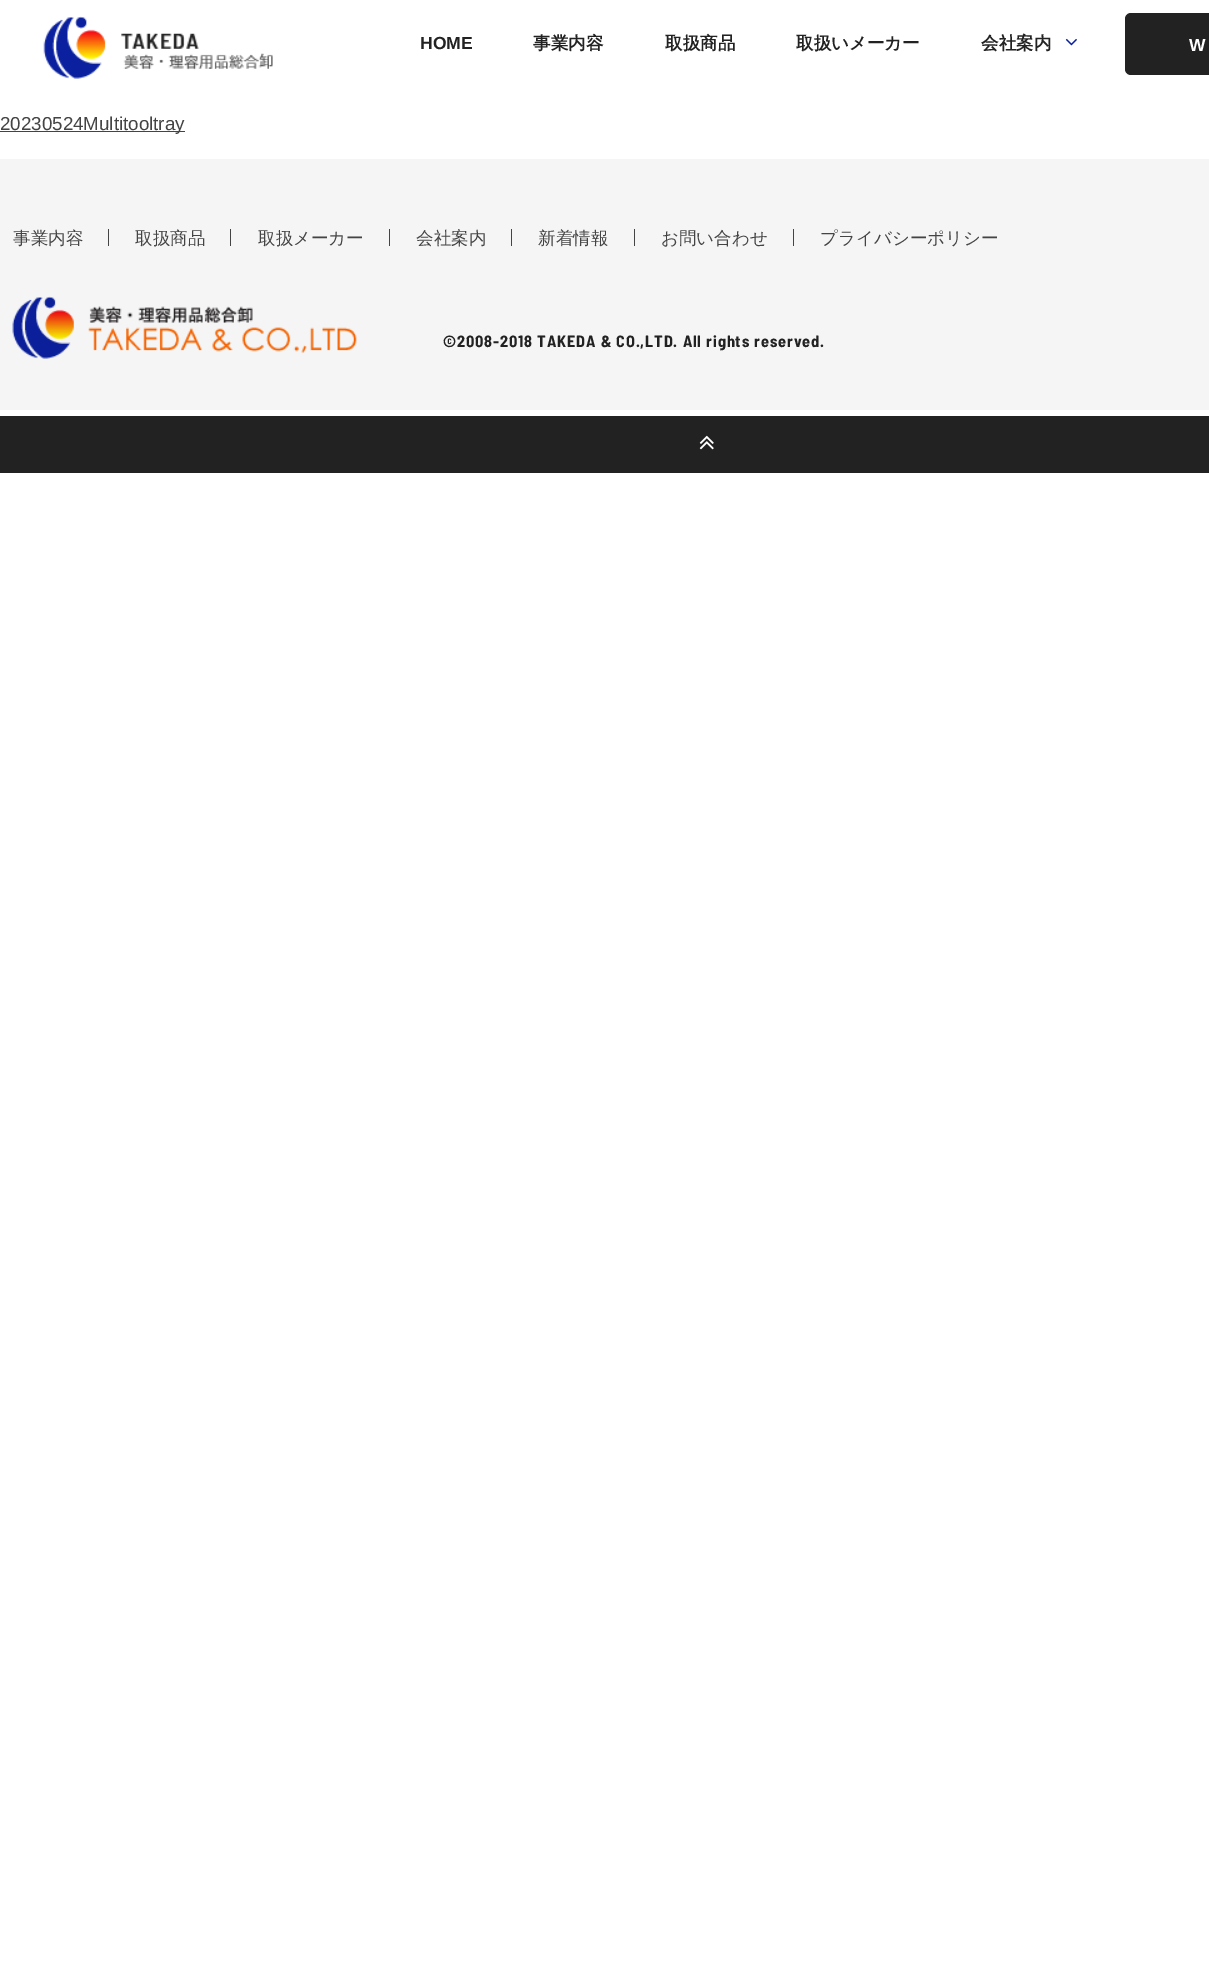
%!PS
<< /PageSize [1209 1961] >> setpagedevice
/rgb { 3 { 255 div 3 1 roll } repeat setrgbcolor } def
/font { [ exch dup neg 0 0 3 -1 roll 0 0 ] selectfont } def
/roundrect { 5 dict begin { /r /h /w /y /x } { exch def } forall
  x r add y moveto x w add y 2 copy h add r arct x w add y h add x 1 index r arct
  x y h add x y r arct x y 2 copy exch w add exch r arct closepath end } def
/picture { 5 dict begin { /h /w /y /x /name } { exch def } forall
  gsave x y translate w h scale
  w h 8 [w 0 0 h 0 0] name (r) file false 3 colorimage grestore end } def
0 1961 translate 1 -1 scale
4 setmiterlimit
255 255 255 rgb
0 0 1209 1961 rectfill
(img/1.rgb) 43 16 230 63 picture
(img/2.rgb) 1065 38 12 8 picture
34 34 34 rgb
1125 13 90 62 6 roundrect fill
[
  [0 131 185 1 68 68 68]
  [0 159 1209 251 245 245 245]
  [108 229 1 17 68 68 68]
  [230 229 1 17 68 68 68]
  [389 229 1 17 68 68 68]
  [511 229 1 17 68 68 68]
  [634 229 1 17 68 68 68]
  [793 229 1 17 68 68 68]
] { aload pop rgb rectfill } forall
(img/3.rgb) 12 296 345 63 picture
34 34 34 rgb
0 416 1209 57 rectfill
(img/4.rgb) 699 435 15 15 picture
/LiberationSans-Bold 17.5 font
420 49 moveto (HOME) show
/WenQuanYiZenHei-Bold 17.5 font
[
  [(事業内容) 533 49]
  [(取扱商品) 665 49]
  [(取扱いメーカー) 796 49]
  [(会社案内) 981 49]
] { aload pop moveto show } forall
/LiberationSans-Bold 17.5 font
255 255 255 rgb
1189 51 moveto (W) show
/LiberationSans-Regular 18.75 font
68 68 68 rgb
0 130 moveto (20230524Multitooltray) show
/WenQuanYiZenHei-Medium 17.5 font
[
  [(事業内容) 13 244]
  [(取扱商品) 135 244]
  [(取扱メーカー) 258 244]
  [(会社案内) 416 244]
  [(新着情報) 538 244]
  [(お問い合わせ) 661 244]
  [(プライバシーポリシー) 820 244]
] { aload pop moveto show } forall
/BarlowSemiCondensed-Bold 16.25 font
34 34 34 rgb
443 347 moveto 0.9 0 (©2008-2018 TAKEDA & CO.,LTD. All rights reserved.) ashow
showpage
